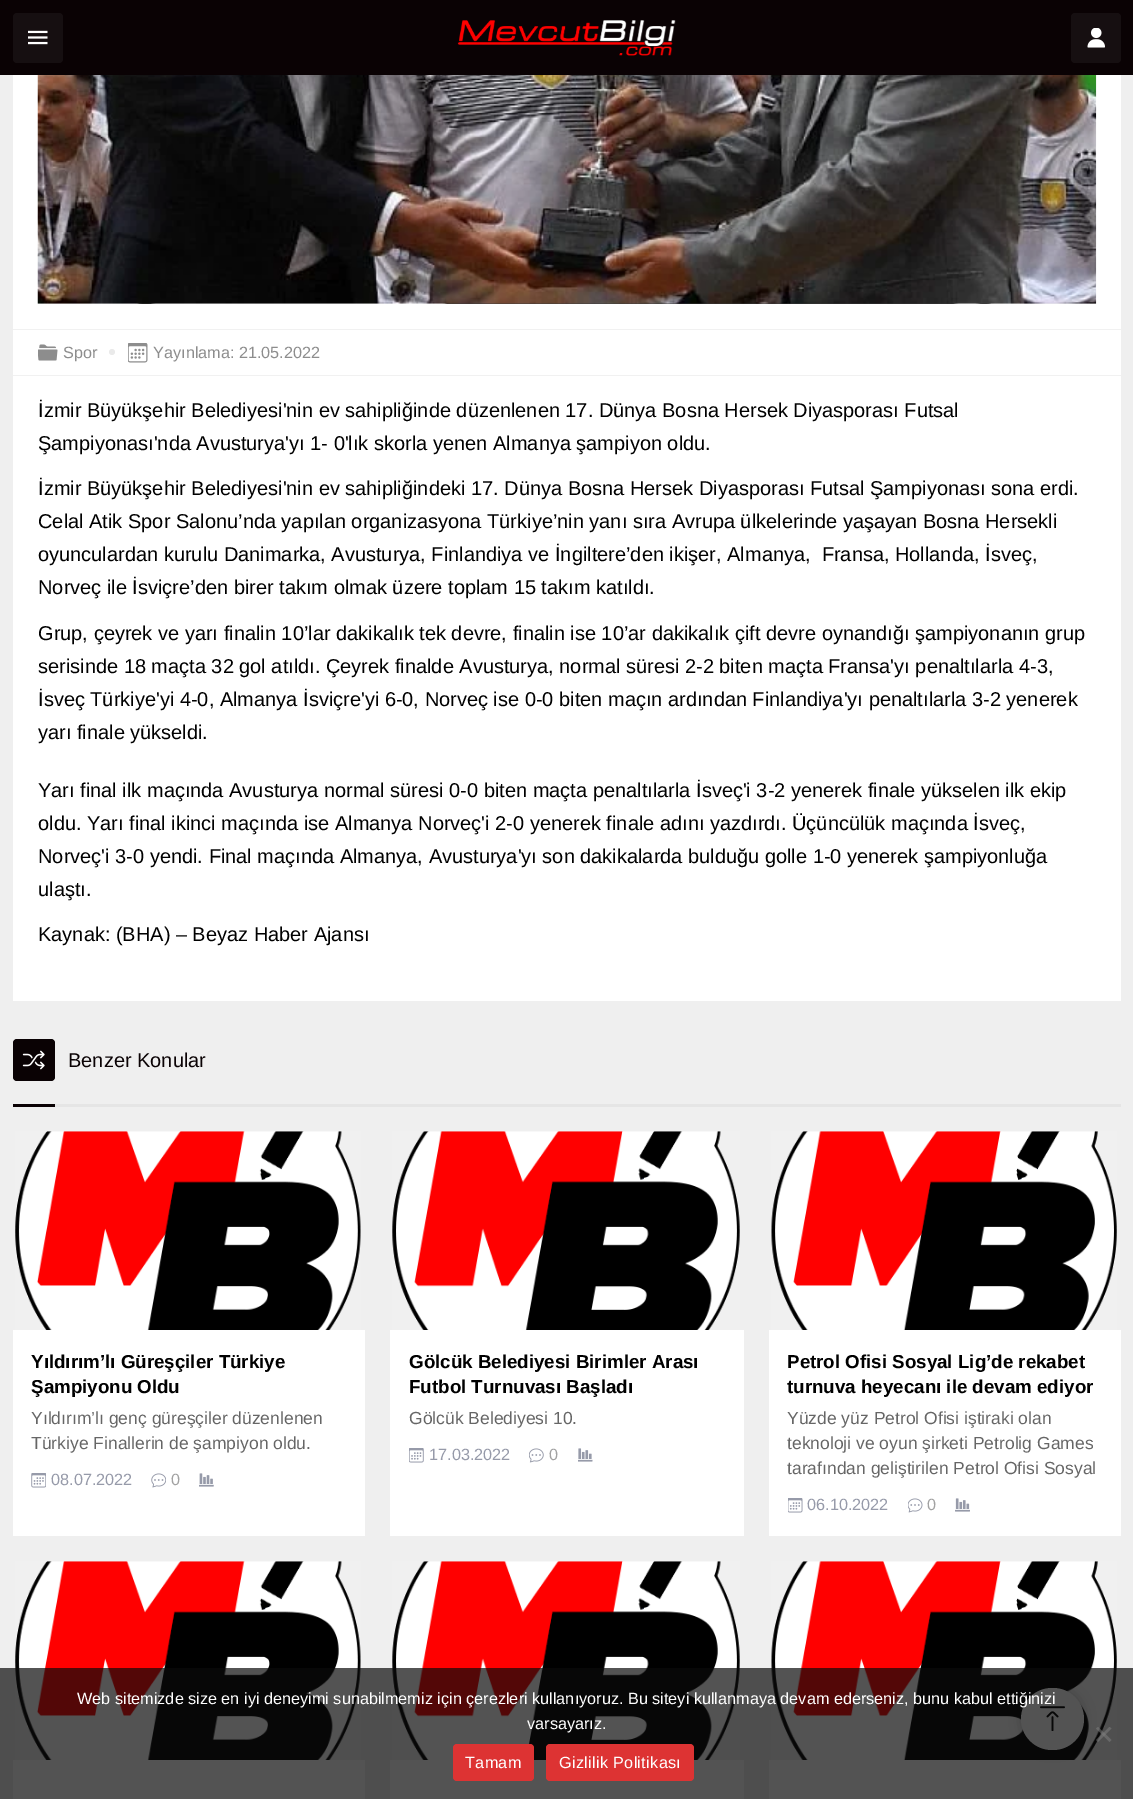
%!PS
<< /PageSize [1133 1799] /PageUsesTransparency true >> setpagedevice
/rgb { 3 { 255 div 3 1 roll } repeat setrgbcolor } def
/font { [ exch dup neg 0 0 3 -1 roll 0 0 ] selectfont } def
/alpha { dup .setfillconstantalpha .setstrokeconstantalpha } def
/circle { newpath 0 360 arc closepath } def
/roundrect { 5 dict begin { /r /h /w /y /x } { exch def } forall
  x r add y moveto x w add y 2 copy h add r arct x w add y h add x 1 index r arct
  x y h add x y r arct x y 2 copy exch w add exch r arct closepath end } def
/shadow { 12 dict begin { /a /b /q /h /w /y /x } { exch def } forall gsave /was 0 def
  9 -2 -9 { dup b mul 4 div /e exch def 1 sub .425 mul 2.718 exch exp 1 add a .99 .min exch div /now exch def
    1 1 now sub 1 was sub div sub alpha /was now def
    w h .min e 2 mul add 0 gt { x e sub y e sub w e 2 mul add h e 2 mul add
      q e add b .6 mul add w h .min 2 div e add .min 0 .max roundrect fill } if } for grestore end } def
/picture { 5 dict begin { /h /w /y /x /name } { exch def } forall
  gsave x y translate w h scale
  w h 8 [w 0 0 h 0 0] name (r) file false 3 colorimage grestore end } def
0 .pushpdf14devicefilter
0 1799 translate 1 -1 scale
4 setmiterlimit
239 239 239 rgb
0 0 1133 1799 rectfill
10 2 4 rgb
0 0 1133 75 rectfill
22 15 17 rgb
13 13 50 50 4 roundrect fill
(img/1.rgb) 28 30 20 15 picture
(img/2.rgb) 457 20 219 36 picture
1071 13 50 50 4 roundrect fill
(img/3.rgb) 1087 28 18 20 picture
255 255 255 rgb
13 75 1108 926 rectfill
240 240 240 rgb
38 303 1058 1 rectfill
(img/4.rgb) 135 303 859 1 picture
(img/5.rgb) 37 75 1060 229 picture
241 241 241 rgb
13 329 1108 1 rectfill
13 375 1108 1 rectfill
(img/6.rgb) 38 344 20 17 picture
234 234 234 rgb
112 352 3 circle fill
(img/7.rgb) 128 343 20 20 picture
229 229 229 rgb
55 1104 1066 3 rectfill
10 2 4 rgb
13 1039 42 42 4 roundrect fill
(img/8.rgb) 22 1050 23 20 picture
13 1104 42 3 rectfill
255 255 255 rgb
13 1330 352 206 rectfill
(img/9.rgb) 15 1131 346 199 picture
(img/10.rgb) 31 1473 15 15 picture
(img/11.rgb) 151 1473 15 15 picture
(img/12.rgb) 199 1473 15 14 picture
390 1330 354 206 rectfill
(img/13.rgb) 392 1131 348 199 picture
(img/14.rgb) 409 1448 15 15 picture
(img/15.rgb) 529 1448 15 15 picture
(img/16.rgb) 578 1448 15 14 picture
769 1330 352 206 rectfill
(img/17.rgb) 771 1131 346 199 picture
(img/18.rgb) 788 1498 15 15 picture
(img/19.rgb) 908 1498 15 15 picture
(img/20.rgb) 955 1498 15 14 picture
13 1760 352 39 rectfill
(img/9.rgb) 15 1561 346 199 picture
390 1760 354 39 rectfill
(img/13.rgb) 392 1561 348 199 picture
769 1760 352 39 rectfill
(img/17.rgb) 771 1561 346 199 picture
0 0 0 rgb
1021 1688 63 62 31 6 0.2 shadow
255 255 255 rgb
1021 1688 63 62 31 roundrect fill
(img/21.rgb) 1040 1706 25 25 picture
0.7 alpha
10 10 10 rgb
0 1668 1133 131 rectfill
0.5 alpha
128 128 128 rgb
1109.5 1727 moveto 1111.5 1728.5 lineto 1098 1742 lineto 1096 1740 lineto closepath fill
1096 1728.5 moveto 1098 1727 lineto 1111.5 1740 lineto 1109.5 1742 lineto closepath fill
1 alpha
221 51 51 rgb
453 1744 81 37 4 roundrect fill
546 1744 148 37 4 roundrect fill
/LiberationSans-Regular 16.25 font
141 141 141 rgb
63 358 moveto (Spor) show
153 358 moveto (Yayınlama: 21.05.2022) show
/LiberationSans-Regular 20 font
0 0 0 rgb
[
  [(İzmir Büyükşehir Belediyesi'nin ev sahipliğinde düzenlenen 17. Dünya Bosna Hersek Diyasporası Futsal) 38 417]
  [(Şampiyonası'nda Avusturya'yı 1- 0'lık skorla yenen Almanya şampiyon oldu.) 38 450]
  [(İzmir Büyükşehir Belediyesi'nin ev sahipliğindeki 17. Dünya Bosna Hersek Diyasporası Futsal Şampiyonası sona erdi.) 38 495]
  [(Celal Atik Spor Salonu’nda yapılan organizasyona Türkiye’nin yanı sıra Avrupa ülkelerinde yaşayan Bosna Hersekli) 38 528]
  [(oyunculardan kurulu Danimarka, Avusturya, Finlandiya ve İngiltere’den ikişer, Almanya,  Fransa, Hollanda, İsveç,) 38 561]
  [(Norveç ile İsviçre’den birer takım olmak üzere toplam 15 takım katıldı.) 38 594]
  [(Grup, çeyrek ve yarı finalin 10’lar dakikalık tek devre, finalin ise 10’ar dakikalık çift devre oynandığı şampiyonanın grup) 38 640]
  [(serisinde 18 maçta 32 gol atıldı. Çeyrek finalde Avusturya, normal süresi 2-2 biten maçta Fransa'yı penaltılarla 4-3,) 38 673]
  [(İsveç Türkiye'yi 4-0, Almanya İsviçre'yi 6-0, Norveç ise 0-0 biten maçın ardından Finlandiya'yı penaltılarla 3-2 yenerek) 38 706]
  [(yarı finale yükseldi.) 38 739]
  [(Yarı final ilk maçında Avusturya normal süresi 0-0 biten maçta penaltılarla İsveç'i 3-2 yenerek finale yükselen ilk ekip) 38 797]
  [(oldu. Yarı final ikinci maçında ise Almanya Norveç'i 2-0 yenerek finale adını yazdırdı. Üçüncülük maçında İsveç,) 38 830]
  [(Norveç'i 3-0 yendi. Final maçında Almanya, Avusturya'yı son dakikalarda bulduğu golle 1-0 yenerek şampiyonluğa) 38 863]
  [(ulaştı.) 38 896]
  [(Kaynak: \(BHA\) – Beyaz Haber Ajansı) 38 941]
] { aload pop moveto show } forall
10 2 4 rgb
68 1067 moveto (Benzer Konular) show
/LiberationSans-Bold 18.75 font
0 0 0 rgb
31 1368 moveto (Yıldırım’lı Güreşçiler Türkiye) show
31 1393 moveto (Şampiyonu Oldu) show
/LiberationSans-Regular 17.5 font
102 102 102 rgb
31 1424 moveto (Yıldırım’lı genç güreşçiler düzenlenen) show
31 1449 moveto (Türkiye Finallerin de şampiyon oldu.) show
/LiberationSans-Regular 16.25 font
150 154 169 rgb
51 1485 moveto (08.07.2022) show
162 162 162 rgb
171 1485 moveto (0) show
/LiberationSans-Bold 18.75 font
0 0 0 rgb
409 1368 moveto (Gölcük Belediyesi Birimler Arası) show
409 1393 moveto (Futbol Turnuvası Başladı) show
/LiberationSans-Regular 17.5 font
102 102 102 rgb
409 1424 moveto (Gölcük Belediyesi 10.) show
/LiberationSans-Regular 16.25 font
150 154 169 rgb
429 1460 moveto (17.03.2022) show
162 162 162 rgb
549 1460 moveto (0) show
/LiberationSans-Bold 18.75 font
0 0 0 rgb
787 1368 moveto (Petrol Ofisi Sosyal Lig’de rekabet) show
787 1393 moveto (turnuva heyecanı ile devam ediyor) show
/LiberationSans-Regular 17.5 font
102 102 102 rgb
[
  [(Yüzde yüz Petrol Ofisi iştiraki olan) 787 1424]
  [(teknoloji ve oyun şirketi Petrolig Games) 787 1449]
  [(tarafından geliştirilen Petrol Ofisi Sosyal) 787 1474]
] { aload pop moveto show } forall
/LiberationSans-Regular 16.25 font
150 154 169 rgb
807 1510 moveto (06.10.2022) show
162 162 162 rgb
927 1510 moveto (0) show
255 255 255 rgb
77 1704 moveto (Web sitemizde size en iyi deneyimi sunabilmemiz için çerezleri kullanıyoruz. Bu siteyi kullanmaya devam ederseniz, bunu kabul ettiğinizi) show
527 1729 moveto (varsayarız.) show
465 1768 moveto 0.3 0 (Tamam) ashow
559 1768 moveto 0.3 0 (Gizlilik Politikası) ashow
.poppdf14devicefilter showpage
